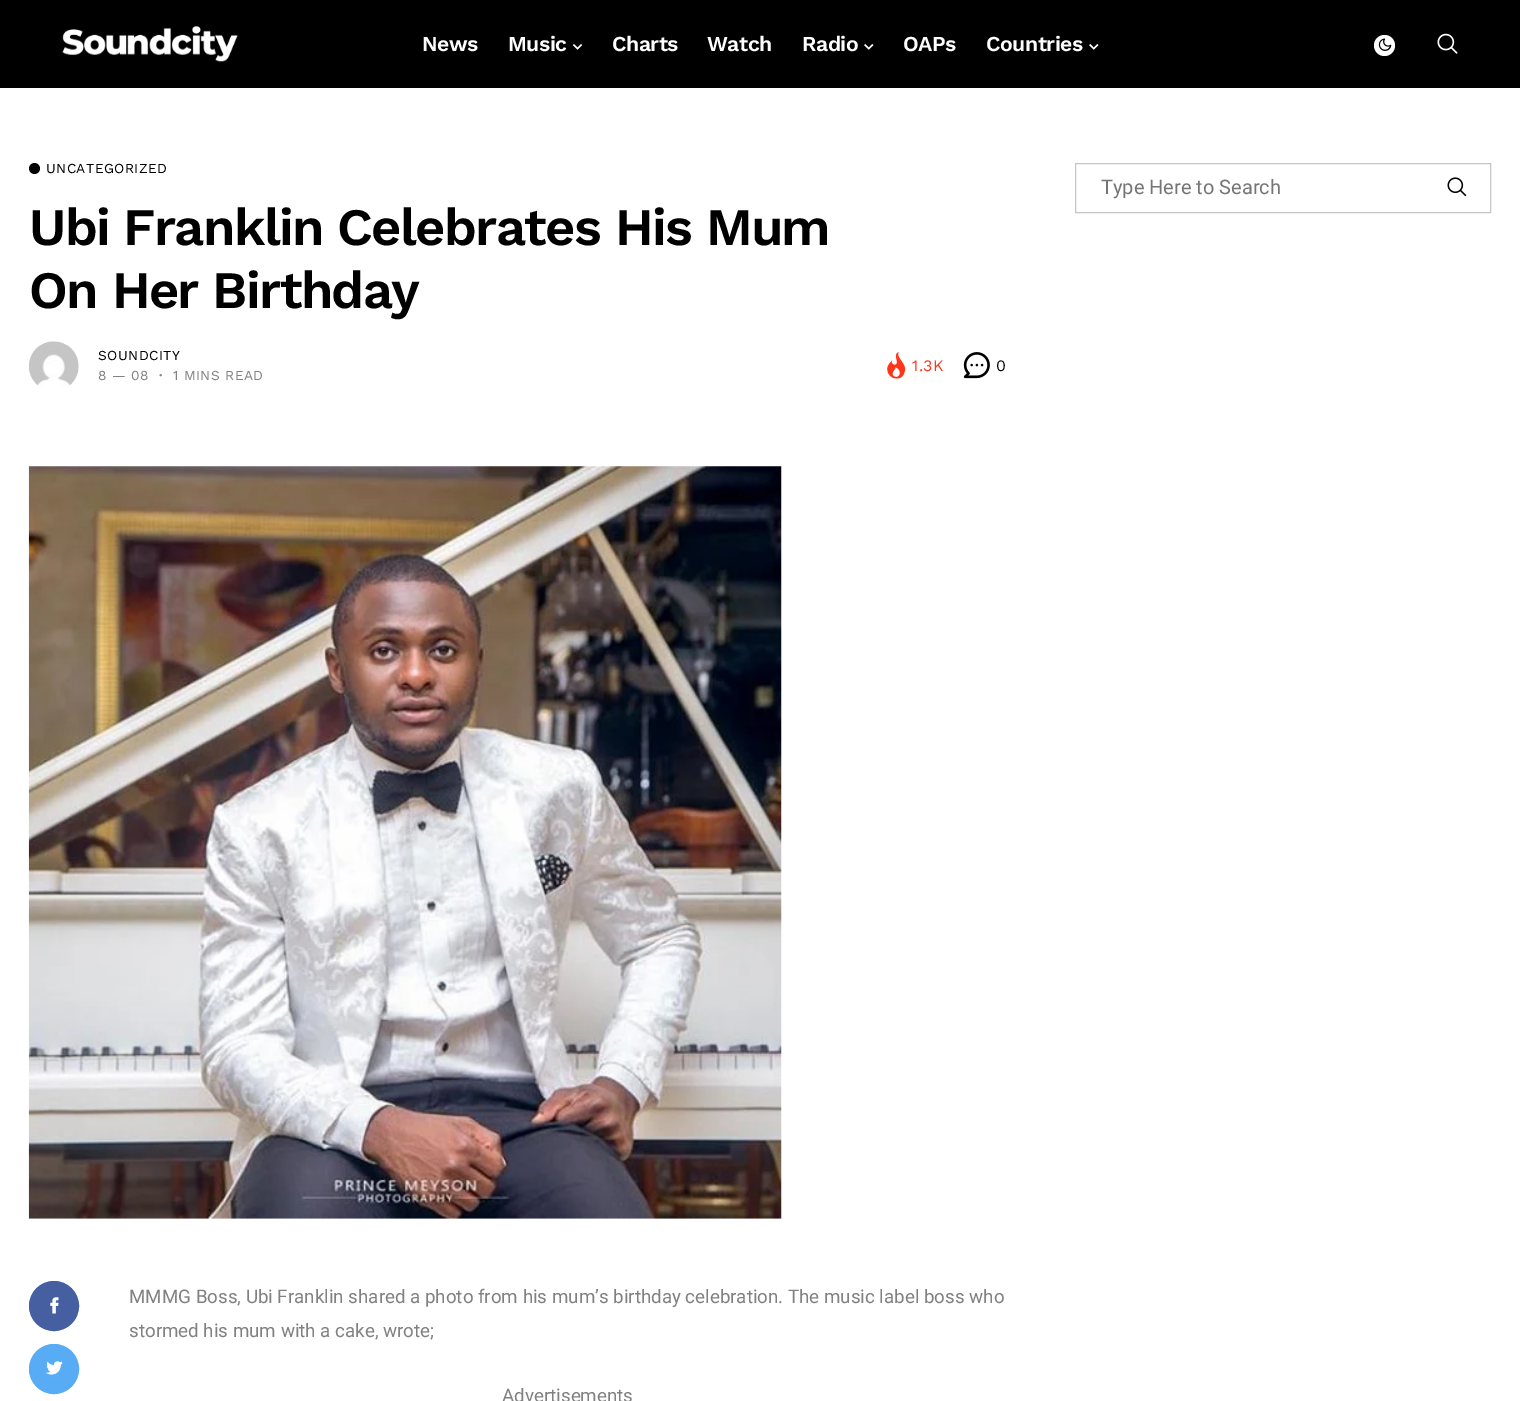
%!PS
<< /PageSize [1520 1401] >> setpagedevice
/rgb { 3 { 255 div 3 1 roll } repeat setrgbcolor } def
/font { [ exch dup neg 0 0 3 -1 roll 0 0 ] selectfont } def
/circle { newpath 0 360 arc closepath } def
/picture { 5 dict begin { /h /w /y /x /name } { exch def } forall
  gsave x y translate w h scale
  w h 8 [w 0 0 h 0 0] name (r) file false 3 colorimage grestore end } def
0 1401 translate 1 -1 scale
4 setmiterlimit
255 255 255 rgb
0 0 1520 1401 rectfill
0 0 0 rgb
0 0 1520 88 rectfill
(img/1.rgb) 62 26 176 36 picture
(img/2.rgb) 572 44 11 6 picture
(img/3.rgb) 864 44 10 6 picture
(img/3.rgb) 1089 44 10 6 picture
255 255 255 rgb
1384.5 45.5 10.5 circle fill
(img/4.rgb) 1378 38 14 13 picture
(img/5.rgb) 1437 33 21 21 picture
0 0 0 rgb
34.5 168.5 5.5 circle fill
(img/6.rgb) 28 341 51 47 picture
(img/7.rgb) 887 352 19 27 picture
(img/8.rgb) 963 352 27 27 picture
(img/9.rgb) 28 466 754 753 picture
69 95 161 rgb
54 1306 24.5 circle gsave fill grestore
stroke
(img/10.rgb) 50 1297 9 17 picture
88 171 245 rgb
54 1369 24.5 circle gsave fill grestore
stroke
(img/11.rgb) 46 1361 17 14 picture
198 198 198 rgb
1075.5 163.5 415 49 rectstroke
(img/12.rgb) 1447 177 20 20 picture
/WorkSans-SemiBold 21.25 font
255 255 255 rgb
422 51 moveto -0.5 0 (News) ashow
508 51 moveto -0.5 0 (Music) ashow
612 51 moveto -0.5 0 (Charts) ashow
707 51 moveto -0.5 0 (Watch) ashow
802 51 moveto -0.5 0 (Radio) ashow
903 51 moveto -0.5 0 (OAPs) ashow
986 51 moveto -0.5 0 (Countries) ashow
/WorkSans-Regular 13.75 font
0 0 0 rgb
46 173 moveto 0.4 0 (UNCATEGORIZED) ashow
/WorkSans-SemiBold 52.5 font
29 245 moveto -1.65 0 (Ubi Franklin Celebrates His Mum) ashow
29 308 moveto -1.65 0 (On Her Birthday) ashow
/WorkSans-Regular 13.75 font
98 360 moveto 0.4 0 (SOUNDCITY) ashow
129 129 129 rgb
98 380 moveto 0.4 0 (8 — 08) ashow
/WorkSans-SemiBold 13.75 font
159 380 moveto 0.4 0 (·) ashow
/WorkSans-Regular 13.75 font
173 380 moveto 0.4 0 (1 MINS READ) ashow
/WorkSans-Regular 16 font
255 52 25 rgb
912 371 moveto 0.5 0 (1.3K) ashow
0 0 0 rgb
996 371 moveto 0.5 0 (0) ashow
/Roboto-Regular 18.75 font
129 129 129 rgb
[
  [(MMMG Boss, Ubi Franklin shared a photo from his mum’s birthday celebration. The music label boss who) 129 1303]
  [(stormed his mum with a cake, wrote;) 129 1337]
  [(Advertisements) 502 1402]
] { aload pop moveto show } forall
/Roboto-Regular 20 font
117 117 117 rgb
1101 194 moveto (Type Here to Search) show
showpage
